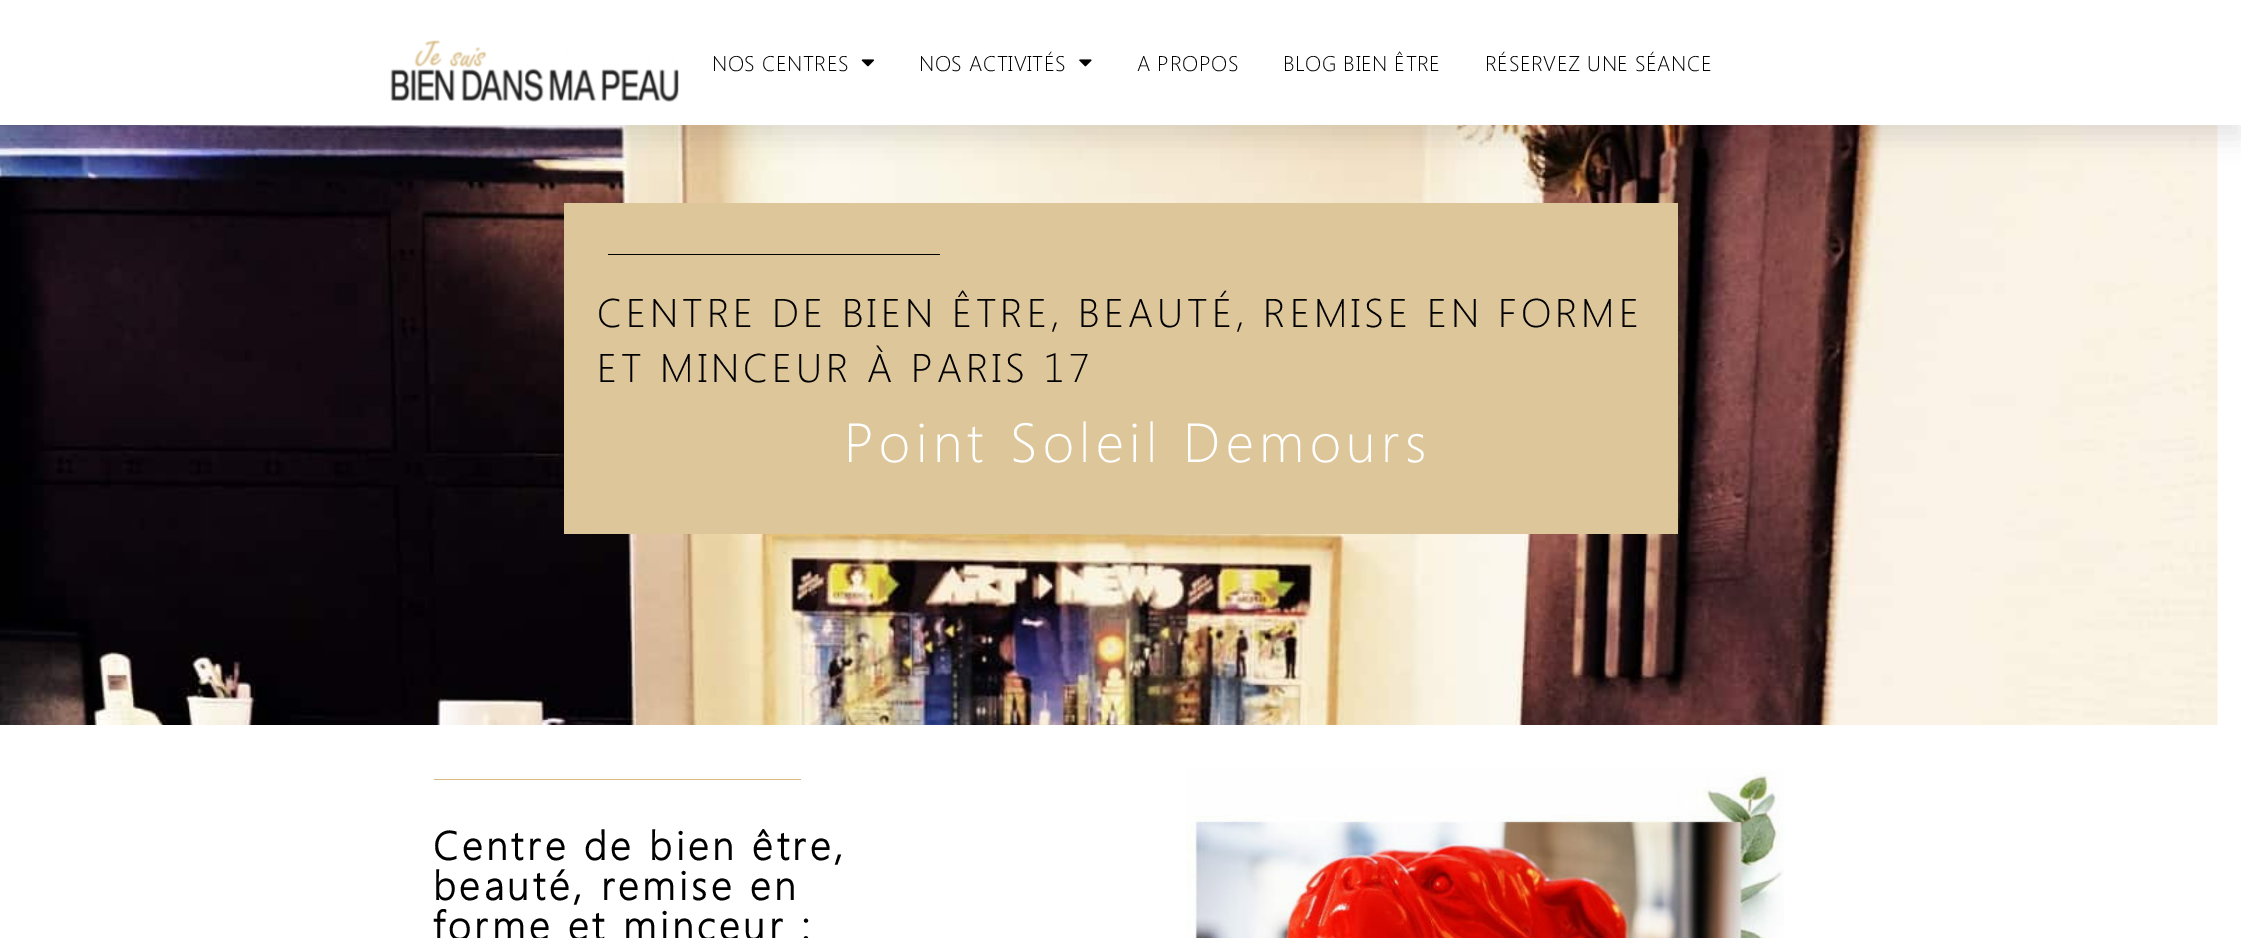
%!PS
<< /PageSize [2241 938] /PageUsesTransparency true >> setpagedevice
/rgb { 3 { 255 div 3 1 roll } repeat setrgbcolor } def
/font { [ exch dup neg 0 0 3 -1 roll 0 0 ] selectfont } def
/alpha { dup .setfillconstantalpha .setstrokeconstantalpha } def
/roundrect { 5 dict begin { /r /h /w /y /x } { exch def } forall
  x r add y moveto x w add y 2 copy h add r arct x w add y h add x 1 index r arct
  x y h add x y r arct x y 2 copy exch w add exch r arct closepath end } def
/shadow { 12 dict begin { /a /b /q /h /w /y /x } { exch def } forall gsave /was 0 def
  9 -2 -9 { dup b mul 4 div /e exch def 1 sub .425 mul 2.718 exch exp 1 add a .99 .min exch div /now exch def
    1 1 now sub 1 was sub div sub alpha /was now def
    w h .min e 2 mul add 0 gt { x e sub y e sub w e 2 mul add h e 2 mul add
      q e add b .6 mul add w h .min 2 div e add .min 0 .max roundrect fill } if } for grestore end } def
/picture { 5 dict begin { /h /w /y /x /name } { exch def } forall
  gsave x y translate w h scale
  w h 8 [w 0 0 h 0 0] name (r) file false 3 colorimage grestore end } def
0 .pushpdf14devicefilter
0 938 translate 1 -1 scale
4 setmiterlimit
255 255 255 rgb
0 0 2241 938 rectfill
(img/4.rgb) 0 125 2218 600 picture
0 0 0 rgb
0 13 2241 125 0 12.5 0.1 shadow
255 255 255 rgb
0 0 2241 125 rectfill
(img/1.rgb) 390 40 289 62 picture
(img/2.rgb) 861 59 13 8 picture
(img/3.rgb) 1079 59 13 8 picture
[
  [564 203 1114 331 221 198 154]
  [608 254 332 1 0 0 0]
  [434 779 367 1 214 185 129]
] { aload pop rgb rectfill } forall
(img/5.rgb) 1186 769 598 169 picture
/SegoeUI-Light 21.25 font
0 0 0 rgb
712 71 moveto 0.6 0 (NOS CENTRES) ashow
919 71 moveto 0.6 0 (NOS ACTIVITÉS) ashow
1137 71 moveto 0.6 0 (A PROPOS) ashow
1283 71 moveto 0.6 0 (BLOG BIEN ÊTRE) ashow
1485 71 moveto 0.6 0 (RÉSERVEZ UNE SÉANCE) ashow
/SegoeUI-Light 40 font
597 327 moveto 4 0 (CENTRE DE BIEN ÊTRE, BEAUTÉ, REMISE EN FORME) ashow
597 382 moveto 4 0 (ET MINCEUR À PARIS 17) ashow
/SegoeUI-Light 55 font
255 255 255 rgb
844 462 moveto 5.5 0 (Point Soleil Demours) ashow
/SegoeUI-Bold 40 font
0 0 0 rgb
433 860 moveto 4 0 (Centre de bien être,) ashow
433 900 moveto 4 0 (beauté, remise en) ashow
433 940 moveto 4 0 (forme et minceur :) ashow
.poppdf14devicefilter showpage
